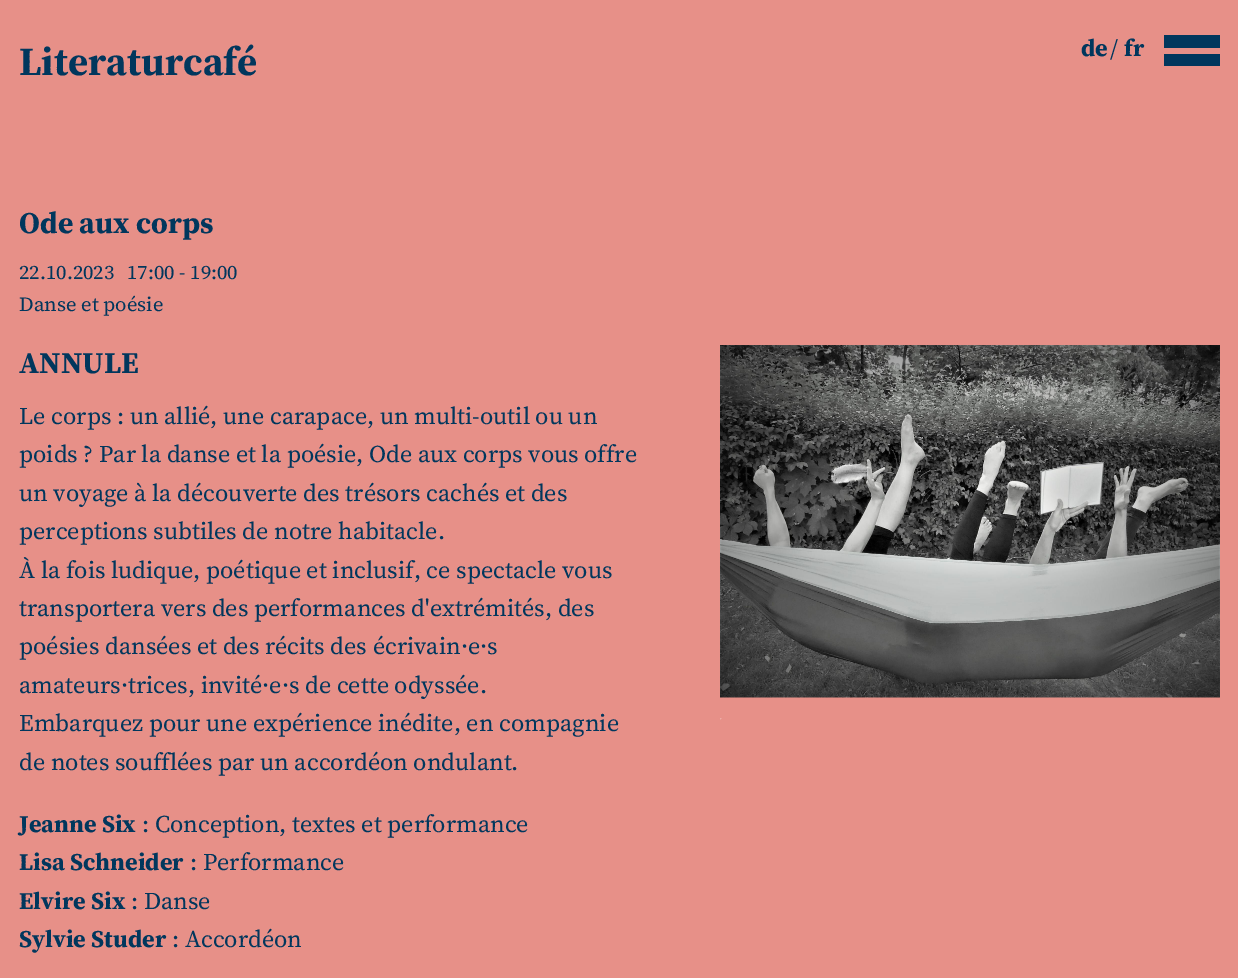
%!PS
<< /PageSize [1238 978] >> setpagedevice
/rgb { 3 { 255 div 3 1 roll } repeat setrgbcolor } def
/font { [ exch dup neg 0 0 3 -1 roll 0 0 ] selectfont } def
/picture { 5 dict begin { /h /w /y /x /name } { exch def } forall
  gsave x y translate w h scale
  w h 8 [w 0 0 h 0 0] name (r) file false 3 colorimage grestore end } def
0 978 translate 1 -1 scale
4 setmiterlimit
231 144 136 rgb
0 0 1238 978 rectfill
1 55 93 rgb
1164 35 56 13 rectfill
1164 54 56 12 rectfill
(img/1.rgb) 720 345 500 353 picture
/SourceSerif4-Bold 40 font
19 75 moveto (Literaturcafé) show
/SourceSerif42-Bold 24 font
1081 56 moveto (de) show
/SourceSerif4-Regular 24 font
1110 56 moveto (/) show
/SourceSerif42-Bold 24 font
1124 56 moveto (fr) show
/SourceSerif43-Bold 30 font
19 233 moveto (Ode aux corps) show
/SourceSerif42-Regular 20 font
[
  [(22.10.2023) 19 279]
  [(17:00 - 19:00) 127 279]
  [(Danse et poésie) 19 311]
] { aload pop moveto show } forall
/SourceSerif43-Bold 30 font
19 373 moveto (ANNULE) show
/SourceSerif43-Regular 24 font
[
  [(Le corps : un allié, une carapace, un multi-outil ou un) 19 424]
  [(poids ? Par la danse et la poésie, Ode aux corps vous offre) 19 462]
  [(un voyage à la découverte des trésors cachés et des) 19 501]
  [(perceptions subtiles de notre habitacle.) 19 539]
  [(À la fois ludique, poétique et inclusif, ce spectacle vous) 19 578]
  [(transportera vers des performances d'extrémités, des) 19 616]
  [(poésies dansées et des récits des écrivain·e·s) 19 654]
  [(amateurs·trices, invité·e·s de cette odyssée.) 19 693]
  [(Embarquez pour une expérience inédite, en compagnie) 19 731]
  [(de notes soufflées par un accordéon ondulant.) 19 770]
] { aload pop moveto show } forall
/SourceSerif42-Bold 24 font
19 832 moveto (Jeanne Six) show
/SourceSerif43-Regular 24 font
142 832 moveto (: Conception, textes et performance) show
/SourceSerif42-Bold 24 font
19 870 moveto (Lisa Schneider) show
/SourceSerif43-Regular 24 font
190 870 moveto (: Performance) show
/SourceSerif42-Bold 24 font
19 909 moveto (Elvire Six) show
/SourceSerif43-Regular 24 font
131 909 moveto (: Danse) show
/SourceSerif42-Bold 24 font
19 947 moveto (Sylvie Studer) show
/SourceSerif43-Regular 24 font
172 947 moveto (: Accordéon) show
/SourceSerif4-ExtraLight 12 font
255 255 255 rgb
719 719 moveto (.) show
showpage
